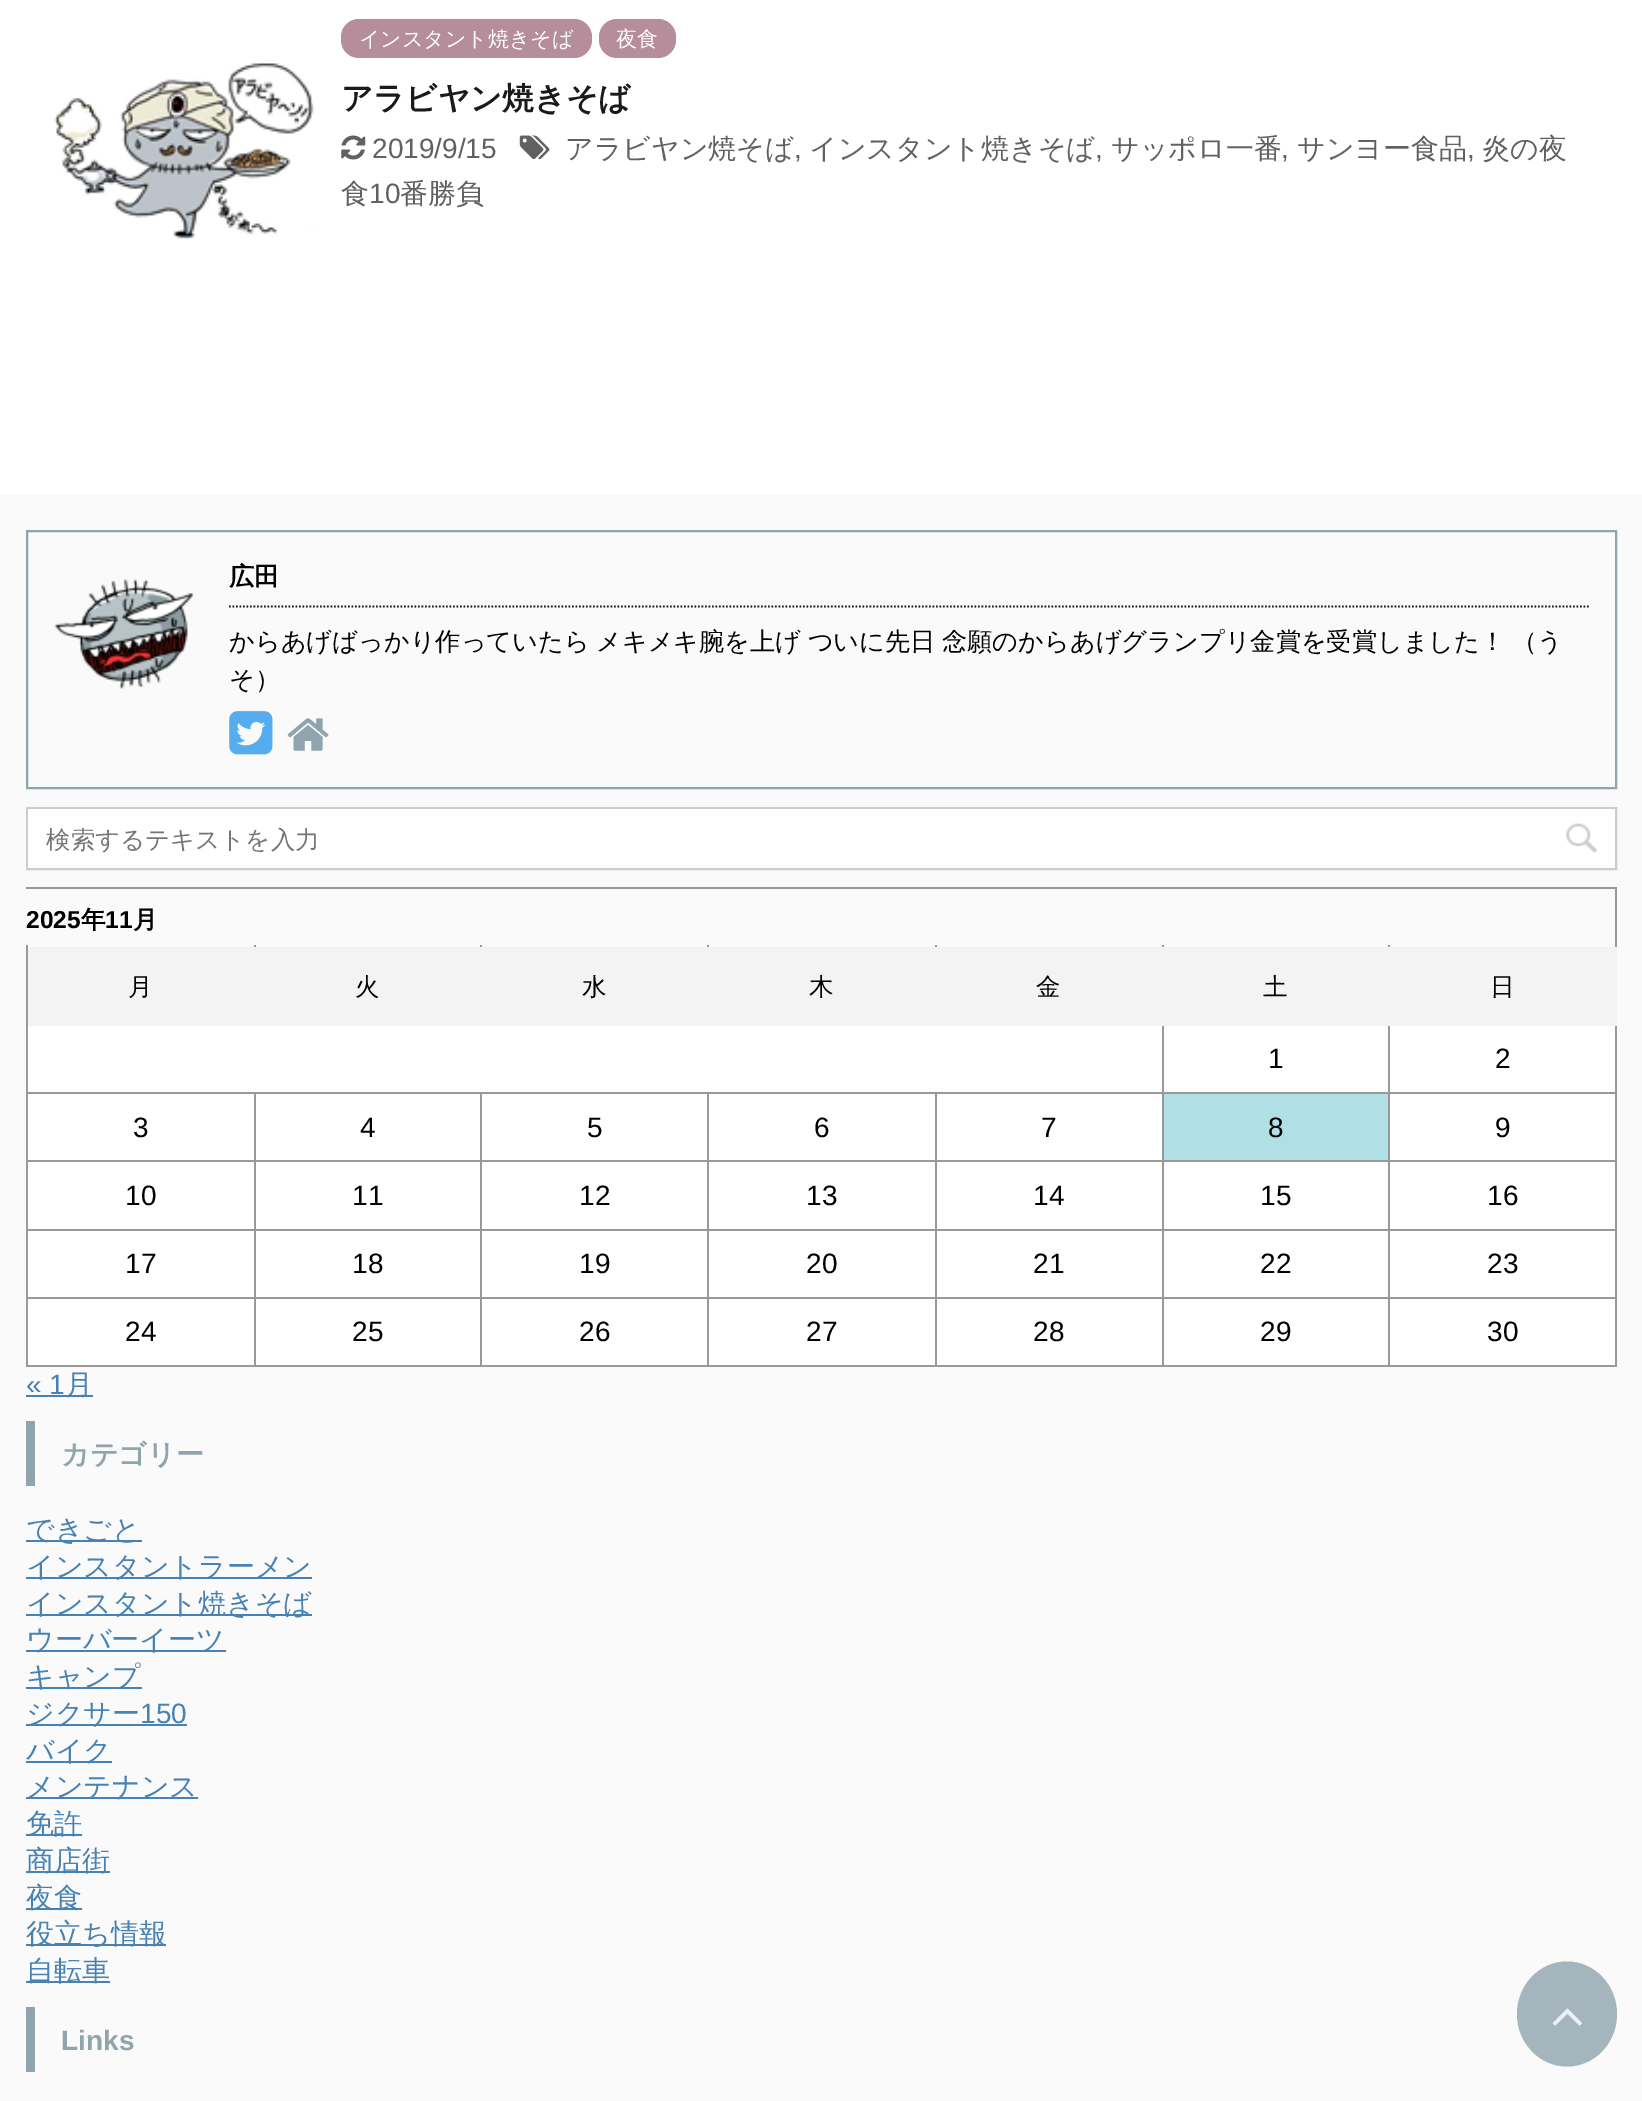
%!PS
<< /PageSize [1642 2101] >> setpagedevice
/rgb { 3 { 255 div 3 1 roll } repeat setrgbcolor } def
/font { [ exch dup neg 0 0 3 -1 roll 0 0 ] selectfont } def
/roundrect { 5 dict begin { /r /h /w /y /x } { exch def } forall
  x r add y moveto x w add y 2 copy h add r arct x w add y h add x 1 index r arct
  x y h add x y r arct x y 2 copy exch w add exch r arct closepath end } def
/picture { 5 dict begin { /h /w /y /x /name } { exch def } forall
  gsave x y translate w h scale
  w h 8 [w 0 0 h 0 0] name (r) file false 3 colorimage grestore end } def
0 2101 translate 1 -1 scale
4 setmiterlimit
250 250 250 rgb
0 0 1642 2101 rectfill
255 255 255 rgb
0 0 1642 495 rectfill
(img/1.rgb) 54 63 260 176 picture
181 141 155 rgb
341 19 251 39 18 roundrect fill
599 19 77 39 18 roundrect fill
(img/2.rgb) 519 135 31 25 picture
(img/3.rgb) 341 135 25 25 picture
144 164 174 rgb
2 setlinewidth
27 531 1589 257 rectstroke
(img/4.rgb) 54 579 140 110 picture
26 26 26 rgb
1.8 setlinewidth
[1.75 1.75] 0 setdash
229 606.5 moveto 1589 606.5 lineto stroke
(img/5.rgb) 229 711 44 44 picture
(img/6.rgb) 287 718 42 33 picture
204 204 204 rgb
2 setlinewidth
[] 0 setdash
27 808 1589 61 rectstroke
255 255 255 rgb
28 809 1587 59 rectfill
(img/7.rgb) 1566 823 32 30 picture
[
  [26 887 1591 2 153 153 153]
  [1615 887 2 480 153 153 153]
  [1388 1365 229 2 153 153 153]
  [1388 1297 2 70 153 153 153]
  [1388 1297 229 2 153 153 153]
  [1388 1229 2 70 153 153 153]
  [1388 1229 229 2 153 153 153]
  [1388 1160 2 70 153 153 153]
  [1388 1160 229 2 153 153 153]
  [1388 1092 2 70 153 153 153]
  [1388 1092 229 2 153 153 153]
  [1388 1024 2 70 153 153 153]
  [1162 1365 228 2 153 153 153]
  [1162 1297 2 70 153 153 153]
  [1162 1297 228 2 153 153 153]
  [1162 1229 2 70 153 153 153]
  [1162 1229 228 2 153 153 153]
  [1162 1160 2 70 153 153 153]
  [1162 1160 228 2 153 153 153]
  [1162 1092 2 70 153 153 153]
  [1162 1092 228 2 153 153 153]
  [1162 1024 2 70 153 153 153]
  [28 947 1589 79 243 243 243]
  [254 945 2 2 153 153 153]
  [480 945 2 2 153 153 153]
  [707 945 2 2 153 153 153]
  [935 945 2 2 153 153 153]
  [1162 945 2 2 153 153 153]
  [1388 945 2 2 153 153 153]
  [28 1026 1134 66 255 255 255]
  [935 1365 229 2 153 153 153]
  [935 1297 2 70 153 153 153]
  [935 1297 229 2 153 153 153]
  [935 1229 2 70 153 153 153]
  [935 1229 229 2 153 153 153]
  [935 1160 2 70 153 153 153]
  [935 1160 229 2 153 153 153]
  [935 1092 2 70 153 153 153]
  [707 1365 229 2 153 153 153]
  [707 1297 2 70 153 153 153]
  [707 1297 229 2 153 153 153]
  [707 1229 2 70 153 153 153]
  [707 1229 229 2 153 153 153]
  [707 1160 2 70 153 153 153]
  [707 1160 229 2 153 153 153]
  [707 1092 2 70 153 153 153]
  [480 1365 229 2 153 153 153]
  [480 1297 2 70 153 153 153]
  [480 1297 229 2 153 153 153]
  [480 1229 2 70 153 153 153]
  [480 1229 229 2 153 153 153]
  [480 1160 2 70 153 153 153]
  [480 1160 229 2 153 153 153]
  [480 1092 2 70 153 153 153]
  [254 1365 227 2 153 153 153]
  [254 1297 2 70 153 153 153]
  [254 1297 227 2 153 153 153]
  [254 1229 2 70 153 153 153]
  [254 1229 227 2 153 153 153]
  [254 1160 2 70 153 153 153]
  [254 1160 227 2 153 153 153]
  [254 1092 2 70 153 153 153]
  [26 1365 230 2 153 153 153]
  [26 1297 2 70 153 153 153]
  [26 1297 230 2 153 153 153]
  [26 1229 2 70 153 153 153]
  [26 1229 230 2 153 153 153]
  [26 1160 2 70 153 153 153]
  [26 1160 230 2 153 153 153]
  [26 1092 2 70 153 153 153]
  [26 1092 1138 2 153 153 153]
  [26 945 2 149 153 153 153]
  [1164 1026 224 66 255 255 255]
  [1390 1026 225 66 255 255 255]
  [28 1094 226 66 255 255 255]
  [256 1094 224 66 255 255 255]
  [482 1094 225 66 255 255 255]
  [709 1094 226 66 255 255 255]
  [937 1094 225 66 255 255 255]
  [1164 1094 224 66 176 224 230]
  [1390 1094 225 66 255 255 255]
  [28 1162 226 67 255 255 255]
  [256 1162 224 67 255 255 255]
  [482 1162 225 67 255 255 255]
  [709 1162 226 67 255 255 255]
  [937 1162 225 67 255 255 255]
  [1164 1162 224 67 255 255 255]
  [1390 1162 225 67 255 255 255]
  [28 1231 226 66 255 255 255]
  [256 1231 224 66 255 255 255]
  [482 1231 225 66 255 255 255]
  [709 1231 226 66 255 255 255]
  [937 1231 225 66 255 255 255]
  [1164 1231 224 66 255 255 255]
  [1390 1231 225 66 255 255 255]
  [28 1299 226 66 255 255 255]
  [256 1299 224 66 255 255 255]
  [482 1299 225 66 255 255 255]
  [709 1299 226 66 255 255 255]
  [937 1299 225 66 255 255 255]
  [1164 1299 224 66 255 255 255]
  [1390 1299 225 66 255 255 255]
  [26 1395 67 2 70 130 180]
  [26 1421 9 65 144 164 174]
  [26 1540 116 2 70 130 180]
  [26 1577 286 2 70 130 180]
  [26 1614 286 2 70 130 180]
  [26 1650 200 2 70 130 180]
  [26 1687 116 2 70 130 180]
  [26 1724 161 2 70 130 180]
  [26 1761 86 2 70 130 180]
  [26 1797 172 2 70 130 180]
  [26 1834 56 2 70 130 180]
  [26 1871 84 2 70 130 180]
  [26 1908 56 2 70 130 180]
  [26 1944 140 2 70 130 180]
  [26 1981 84 2 70 130 180]
  [26 2007 9 65 144 164 174]
] { aload pop rgb rectfill } forall
165 181 189 rgb
1567 1961.5 moveto 1594.5 1961.5 1617 1985 1617 2014 curveto 1617 2043 1594.5 2066.5 1567 2066.5 curveto 1539.5 2066.5 1517 2043 1517 2014 curveto 1517 1985 1539.5 1961.5 1567 1961.5 curveto closepath fill
(img/8.rgb) 1552 2008 30 18 picture
/WenQuanYiZenHei-Medium 21 font
255 255 255 rgb
359 46 moveto (インスタント焼きそば) show
616 46 moveto (夜食) show
/WenQuanYiZenHei-Bold 31.5 font
26 26 26 rgb
341 109 moveto (アラビヤン焼きそば) show
/WenQuanYiZenHei-Medium 28 font
97 97 97 rgb
565 158 moveto (アラビヤン焼そば) show
/LiberationSans-Regular 28 font
794 158 moveto (,) show
/WenQuanYiZenHei-Medium 28 font
809 158 moveto (インスタント焼きそば) show
/LiberationSans-Regular 28 font
1095 158 moveto (,) show
/WenQuanYiZenHei-Medium 28 font
1111 158 moveto (サッポロ一番) show
/LiberationSans-Regular 28 font
1281 158 moveto (,) show
/WenQuanYiZenHei-Medium 28 font
1297 158 moveto (サンヨー食品) show
/LiberationSans-Regular 28 font
1467 158 moveto (,) show
/WenQuanYiZenHei-Medium 28 font
1482 158 moveto (炎の夜) show
341 203 moveto (食) show
/LiberationSans-Regular 28 font
369 203 moveto (10) show
/WenQuanYiZenHei-Medium 28 font
400 203 moveto (番勝負) show
/LiberationSans-Regular 28 font
372 158 moveto (2019/9/15) show
/WenQuanYiZenHei-Bold 25.2 font
0 0 0 rgb
229 585 moveto (広田) show
/WenQuanYiZenHei-Medium 25.2 font
229 650 moveto -1 0 32 (からあげばっかり作っていたら メキメキ腕を上げ ついに先日 念願のからあげグランプリ金賞を受賞しました！ （う) widthshow
229 688 moveto (そ）) show
/WenQuanYiZenHei-Medium 24.5 font
117 117 117 rgb
46 848 moveto (検索するテキストを入力) show
/LiberationSans-Bold 24.5 font
0 0 0 rgb
26 928 moveto (2025) show
/WenQuanYiZenHei-Bold 24.5 font
81 928 moveto (年) show
/LiberationSans-Bold 24.5 font
105 928 moveto (11) show
/WenQuanYiZenHei-Bold 24.5 font
133 928 moveto (月) show
/WenQuanYiZenHei-Medium 24.5 font
[
  [(月) 128 995]
  [(火) 355 995]
  [(水) 582 995]
  [(木) 809 995]
  [(金) 1036 995]
  [(土) 1263 995]
  [(日) 1490 995]
] { aload pop moveto show } forall
/LiberationSans-Regular 28 font
[
  [(1) 1268 1068]
  [(2) 1495 1068]
  [(3) 133 1137]
  [(4) 360 1137]
  [(5) 587 1137]
  [(6) 814 1137]
  [(7) 1041 1137]
  [(8) 1268 1137]
  [(9) 1495 1137]
  [(10) 125 1205]
  [(11) 352 1205]
  [(12) 579 1205]
  [(13) 806 1205]
  [(14) 1033 1205]
  [(15) 1260 1205]
  [(16) 1487 1205]
  [(17) 125 1273]
  [(18) 352 1273]
  [(19) 579 1273]
  [(20) 806 1273]
  [(21) 1033 1273]
  [(22) 1260 1273]
  [(23) 1487 1273]
  [(24) 125 1341]
  [(25) 352 1341]
  [(26) 579 1341]
  [(27) 806 1341]
  [(28) 1033 1341]
  [(29) 1260 1341]
  [(30) 1487 1341]
] { aload pop moveto show } forall
70 130 180 rgb
26 1394 moveto (« 1) show
/WenQuanYiZenHei-Medium 28 font
65 1394 moveto (月) show
/WenQuanYiZenHei-Bold 28 font
144 164 174 rgb
61 1464 moveto (カテゴリー) show
/WenQuanYiZenHei-Medium 28 font
70 130 180 rgb
[
  [(できごと) 26 1539]
  [(インスタントラーメン) 26 1576]
  [(インスタント焼きそば) 26 1613]
  [(ウーバーイーツ) 26 1649]
  [(キャンプ) 26 1686]
  [(ジクサー) 26 1723]
] { aload pop moveto show } forall
/LiberationSans-Regular 28 font
140 1723 moveto (150) show
/WenQuanYiZenHei-Medium 28 font
[
  [(バイク) 26 1760]
  [(メンテナンス) 26 1796]
  [(免許) 26 1833]
  [(商店街) 26 1870]
  [(夜食) 26 1907]
  [(役立ち情報) 26 1943]
  [(自転車) 26 1980]
] { aload pop moveto show } forall
/LiberationSans-Bold 28 font
144 164 174 rgb
61 2050 moveto (Links) show
showpage
